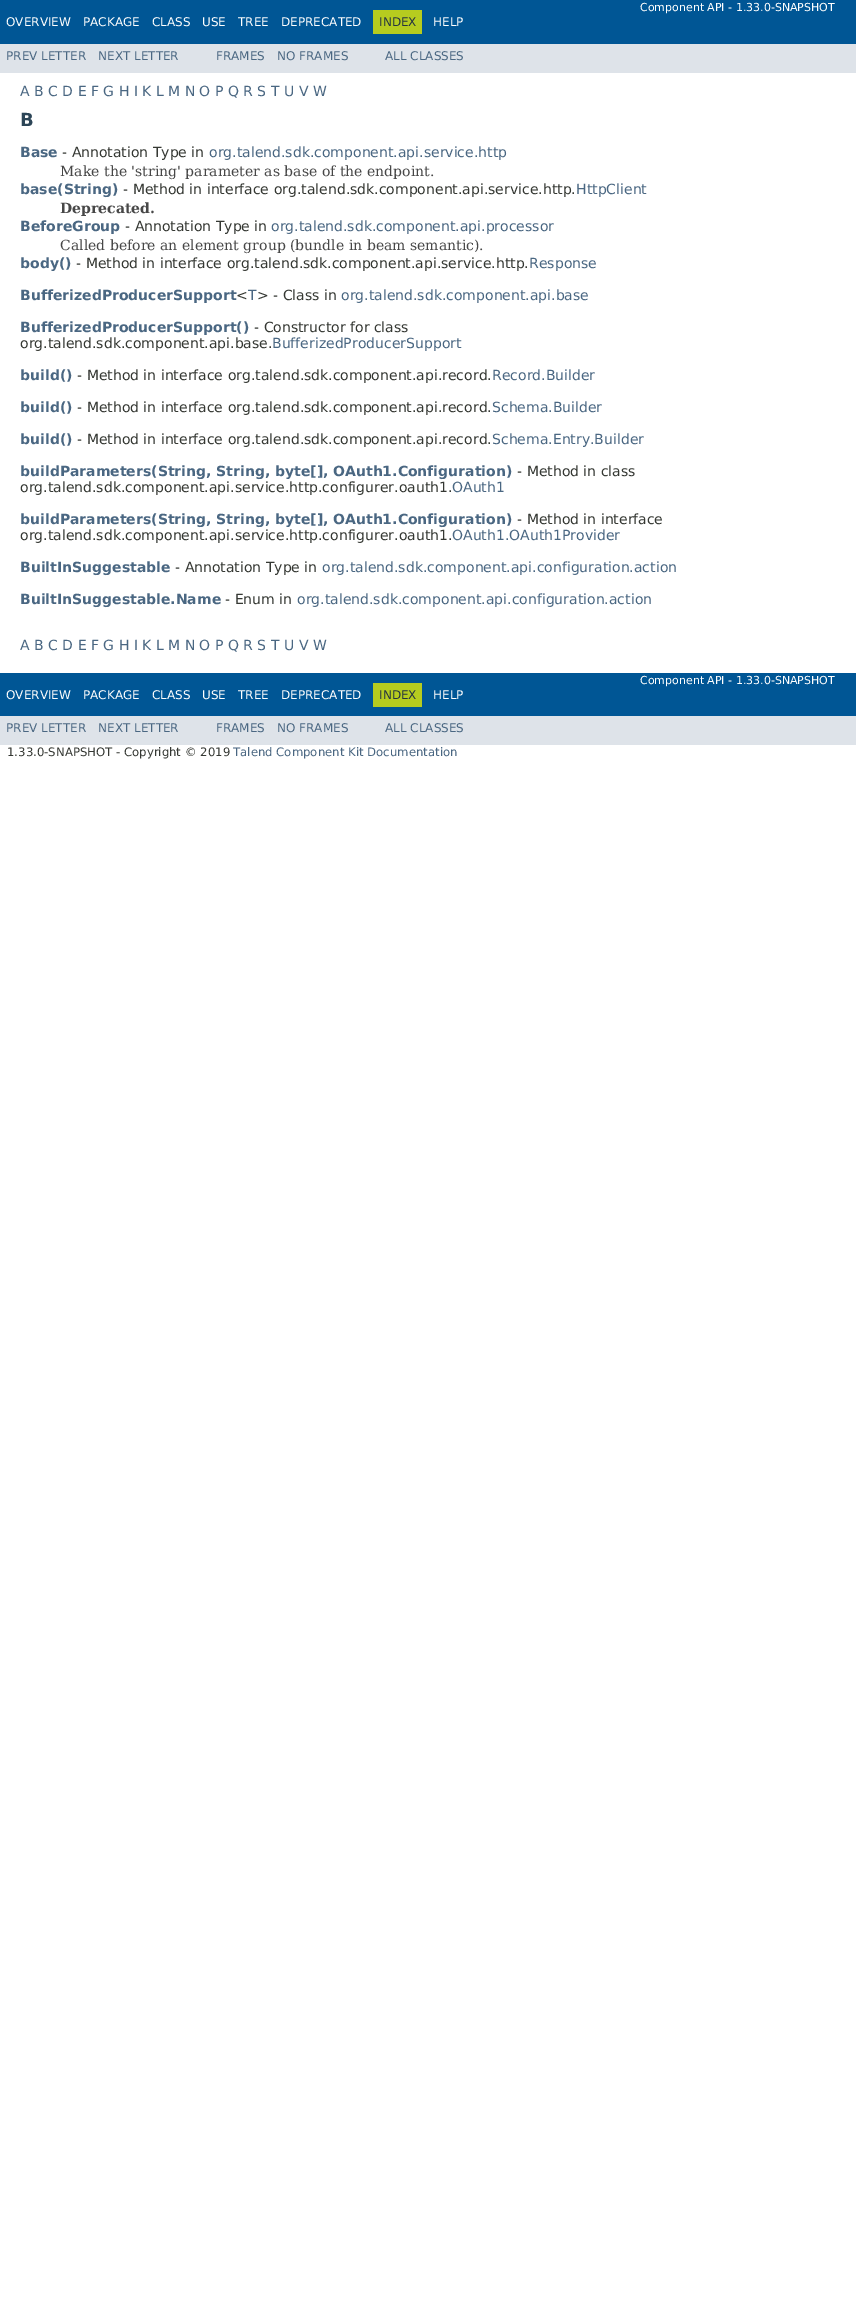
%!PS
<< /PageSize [856 2309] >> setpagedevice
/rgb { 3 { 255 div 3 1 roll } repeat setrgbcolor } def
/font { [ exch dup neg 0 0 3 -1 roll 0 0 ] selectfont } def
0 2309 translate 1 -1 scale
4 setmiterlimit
255 255 255 rgb
0 0 856 2309 rectfill
[
  [0 0 856 44 0 86 149]
  [373 10 49 24 182 204 31]
  [0 44 856 29 222 227 233]
  [0 673 856 43 0 86 149]
  [373 683 49 24 182 204 31]
  [0 716 856 29 222 227 233]
] { aload pop rgb rectfill } forall
/DejaVuSans-Regular 11 font
255 255 255 rgb
640 11 moveto (Component API - 1.33.0-SNAPSHOT) show
/DejaVuSans-Regular 12 font
[
  [(OVERVIEW) 6 26]
  [(PACKAGE) 83 26]
  [(CLASS) 152 26]
  [(USE) 202 26]
  [(TREE) 238 26]
  [(DEPRECATED) 281 26]
] { aload pop moveto show } forall
37 52 65 rgb
379 26 moveto (INDEX) show
255 255 255 rgb
433 26 moveto (HELP) show
74 103 130 rgb
[
  [(PREV LETTER) 6 60]
  [(NEXT LETTER) 98 60]
  [(FRAMES) 216 60]
  [(NO FRAMES) 277 60]
  [(ALL CLASSES) 385 60]
] { aload pop moveto show } forall
/DejaVuSans-Regular 14 font
20 96 moveto (A B C D E F G H I K L M N O P Q R S T U V W) show
/DejaVuSans-Bold 18 font
44 69 87 rgb
20 126 moveto (B) show
/DejaVuSans-Bold 14 font
74 103 130 rgb
20 157 moveto (Base) show
/DejaVuSans-Regular 14 font
53 56 51 rgb
62 157 moveto (- Annotation Type in) show
74 103 130 rgb
209 157 moveto (org.talend.sdk.component.api.service.http) show
/DejaVuSerif-Regular 14 font
71 71 71 rgb
60 176 moveto (Make the 'string' parameter as base of the endpoint.) show
/DejaVuSans-Bold 14 font
74 103 130 rgb
20 194 moveto (base\(String\)) show
/DejaVuSans-Regular 14 font
53 56 51 rgb
123 194 moveto (- Method in interface org.talend.sdk.component.api.service.http.) show
74 103 130 rgb
576 194 moveto (HttpClient) show
/DejaVuSerif-Bold 14 font
71 71 71 rgb
60 213 moveto (Deprecated.) show
/DejaVuSans-Bold 14 font
74 103 130 rgb
20 231 moveto (BeforeGroup) show
/DejaVuSans-Regular 14 font
53 56 51 rgb
125 231 moveto (- Annotation Type in) show
74 103 130 rgb
271 231 moveto (org.talend.sdk.component.api.processor) show
/DejaVuSerif-Regular 14 font
71 71 71 rgb
60 250 moveto (Called before an element group \(bundle in beam semantic\).) show
/DejaVuSans-Bold 14 font
74 103 130 rgb
20 268 moveto (body\(\)) show
/DejaVuSans-Regular 14 font
53 56 51 rgb
76 268 moveto (- Method in interface org.talend.sdk.component.api.service.http.) show
74 103 130 rgb
529 268 moveto (Response) show
/DejaVuSans-Bold 14 font
20 300 moveto (BufferizedProducerSupport) show
/DejaVuSans-Regular 14 font
53 56 51 rgb
236 300 moveto (<) show
74 103 130 rgb
248 300 moveto (T) show
53 56 51 rgb
257 300 moveto (> - Class in) show
74 103 130 rgb
341 300 moveto (org.talend.sdk.component.api.base) show
/DejaVuSans-Bold 14 font
20 332 moveto (BufferizedProducerSupport\(\)) show
/DejaVuSans-Regular 14 font
53 56 51 rgb
254 332 moveto (- Constructor for class) show
20 348 moveto (org.talend.sdk.component.api.base.) show
74 103 130 rgb
272 348 moveto (BufferizedProducerSupport) show
/DejaVuSans-Bold 14 font
20 380 moveto (build\(\)) show
/DejaVuSans-Regular 14 font
53 56 51 rgb
77 380 moveto (- Method in interface org.talend.sdk.component.api.record.) show
74 103 130 rgb
492 380 moveto (Record.Builder) show
/DejaVuSans-Bold 14 font
20 412 moveto (build\(\)) show
/DejaVuSans-Regular 14 font
53 56 51 rgb
77 412 moveto (- Method in interface org.talend.sdk.component.api.record.) show
74 103 130 rgb
492 412 moveto (Schema.Builder) show
/DejaVuSans-Bold 14 font
20 444 moveto (build\(\)) show
/DejaVuSans-Regular 14 font
53 56 51 rgb
77 444 moveto (- Method in interface org.talend.sdk.component.api.record.) show
74 103 130 rgb
492 444 moveto (Schema.Entry.Builder) show
/DejaVuSans-Bold 14 font
20 476 moveto (buildParameters\(String, String, byte[], OAuth1.Configuration\)) show
/DejaVuSans-Regular 14 font
53 56 51 rgb
517 476 moveto (- Method in class) show
20 492 moveto (org.talend.sdk.component.api.service.http.configurer.oauth1.) show
74 103 130 rgb
452 492 moveto (OAuth1) show
/DejaVuSans-Bold 14 font
20 524 moveto (buildParameters\(String, String, byte[], OAuth1.Configuration\)) show
/DejaVuSans-Regular 14 font
53 56 51 rgb
517 524 moveto (- Method in interface) show
20 540 moveto (org.talend.sdk.component.api.service.http.configurer.oauth1.) show
74 103 130 rgb
452 540 moveto (OAuth1.OAuth1Provider) show
/DejaVuSans-Bold 14 font
20 572 moveto (BuiltInSuggestable) show
/DejaVuSans-Regular 14 font
53 56 51 rgb
175 572 moveto (- Annotation Type in) show
74 103 130 rgb
322 572 moveto (org.talend.sdk.component.api.configuration.action) show
/DejaVuSans-Bold 14 font
20 604 moveto (BuiltInSuggestable.Name) show
/DejaVuSans-Regular 14 font
53 56 51 rgb
225 604 moveto (- Enum in) show
74 103 130 rgb
297 604 moveto (org.talend.sdk.component.api.configuration.action) show
20 650 moveto (A B C D E F G H I K L M N O P Q R S T U V W) show
/DejaVuSans-Regular 11 font
255 255 255 rgb
640 684 moveto (Component API - 1.33.0-SNAPSHOT) show
/DejaVuSans-Regular 12 font
[
  [(OVERVIEW) 6 699]
  [(PACKAGE) 83 699]
  [(CLASS) 152 699]
  [(USE) 202 699]
  [(TREE) 238 699]
  [(DEPRECATED) 281 699]
] { aload pop moveto show } forall
37 52 65 rgb
379 699 moveto (INDEX) show
255 255 255 rgb
433 699 moveto (HELP) show
74 103 130 rgb
[
  [(PREV LETTER) 6 732]
  [(NEXT LETTER) 98 732]
  [(FRAMES) 216 732]
  [(NO FRAMES) 277 732]
  [(ALL CLASSES) 385 732]
] { aload pop moveto show } forall
/DejaVuSans-Regular 11.7 font
53 56 51 rgb
7 756 moveto (1.33.0-SNAPSHOT - Copyright © 2019) show
74 103 130 rgb
233 756 moveto (Talend Component Kit Documentation) show
showpage
